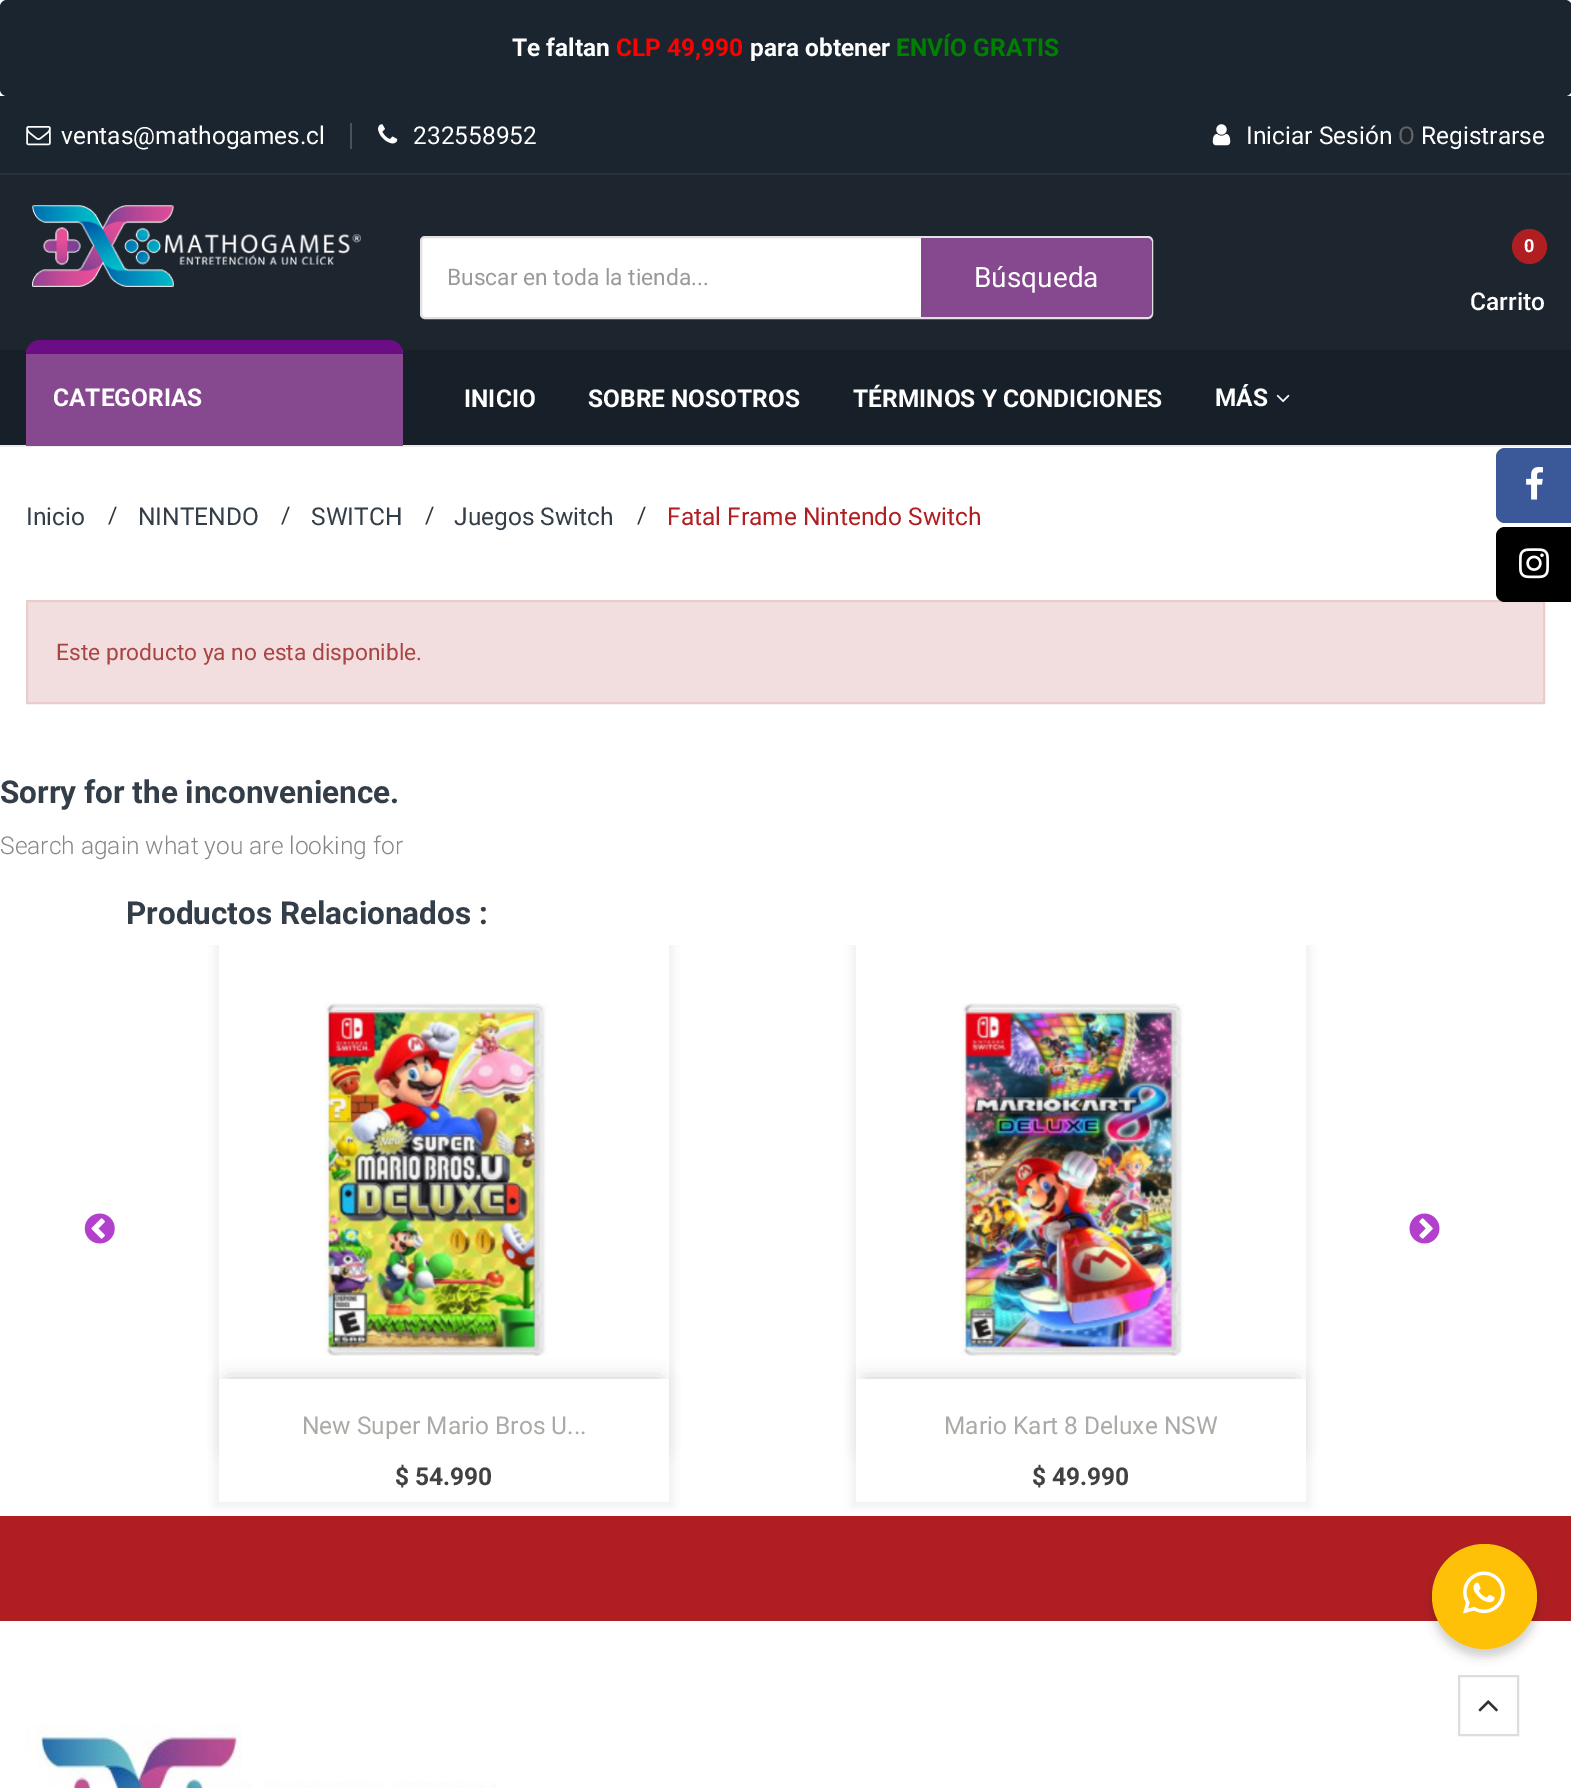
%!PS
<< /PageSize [1571 1788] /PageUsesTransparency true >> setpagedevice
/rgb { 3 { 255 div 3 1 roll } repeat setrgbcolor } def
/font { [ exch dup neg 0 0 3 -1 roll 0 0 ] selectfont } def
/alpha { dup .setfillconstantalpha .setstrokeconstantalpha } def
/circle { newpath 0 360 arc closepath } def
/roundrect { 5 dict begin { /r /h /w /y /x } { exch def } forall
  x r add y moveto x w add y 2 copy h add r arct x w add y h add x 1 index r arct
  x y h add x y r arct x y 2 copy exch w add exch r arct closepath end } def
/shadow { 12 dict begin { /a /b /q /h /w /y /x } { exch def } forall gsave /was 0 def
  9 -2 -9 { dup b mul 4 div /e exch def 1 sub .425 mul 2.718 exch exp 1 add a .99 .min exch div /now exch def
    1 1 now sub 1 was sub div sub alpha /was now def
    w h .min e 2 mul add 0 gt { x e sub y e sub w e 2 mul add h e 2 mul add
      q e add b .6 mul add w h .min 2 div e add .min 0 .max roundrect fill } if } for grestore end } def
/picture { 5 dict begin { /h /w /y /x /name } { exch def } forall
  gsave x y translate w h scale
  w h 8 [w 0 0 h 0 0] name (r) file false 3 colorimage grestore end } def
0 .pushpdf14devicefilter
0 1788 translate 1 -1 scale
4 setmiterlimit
255 255 255 rgb
0 0 1571 1788 rectfill
27 37 47 rgb
0 0 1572 96 7 roundrect fill
0 96 1571 77 rectfill
38 49 60 rgb
0 173 1571 2 rectfill
(img/1.rgb) 26 126 25 20 picture
73 81 89 rgb
350 123 2 26 rectfill
(img/2.rgb) 378 124 20 20 picture
(img/3.rgb) 1212 124 19 22 picture
29 37 46 rgb
0 175 1571 175 rectfill
(img/4.rgb) 32 205 329 82 picture
255 255 255 rgb
421 237 731 81 4 roundrect gsave fill grestore
225 225 225 rgb
2 setlinewidth
stroke
255 255 255 rgb
921 238 moveto 1148 238 lineto 1150 238 1152 240 1152 242 curveto 1152 313 lineto 1152 315 1150 317 1148 317 curveto 921 317 lineto closepath fill
gsave
422 238 730 79 4 roundrect clip newpath
134 73 143 rgb
921 238 moveto 1147 238 lineto 1150 238 1152 240 1152 243 curveto 1152 312 lineto 1152 315 1150 317 1147 317 curveto 921 317 lineto closepath fill
grestore
177 30 34 rgb
1529.5 246.5 17.5 circle fill
[
  [0 350 1571 95 23 32 41]
  [0 445 1571 2 235 235 235]
  [26 350 377 96 134 73 143]
] { aload pop rgb rectfill } forall
107 13 133 rgb
40 340 moveto 389 340 lineto 396.5 340 403 346.5 403 354 curveto 26 354 lineto 26 346.5 32.5 340 40 340 curveto closepath fill
(img/5.rgb) 1276 394 14 9 picture
59 89 152 rgb
1505 448 moveto 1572 448 lineto 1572 523 lineto 1505 523 lineto 1500 523 1496 519 1496 514 curveto 1496 457 lineto 1496 452 1500 448 1505 448 curveto closepath fill
(img/6.rgb) 1526 467 17 33 picture
242 222 222 rgb
27 601 moveto 1544 601 lineto 1544 703 lineto 27 703 lineto closepath gsave fill grestore
235 204 204 rgb
stroke
0 0 0 rgb
1505 527 moveto 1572 527 lineto 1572 602 lineto 1505 602 lineto 1500 602 1496 598 1496 593 curveto 1496 536 lineto 1496 531 1500 527 1505 527 curveto closepath fill
(img/7.rgb) 1519 548 30 31 picture
177 30 34 rgb
0 1516 1571 105 rectfill
0 0 0 rgb
1432 1551 105 105 52.5 5 0.1 shadow
1432 1551 105 105 52.5 5 0.1 shadow
255 193 7 rgb
1484.5 1596.5 52.5 circle fill
(img/8.rgb) 1463 1571 42 43 picture
(img/9.rgb) 26 1725 471 63 picture
(img/10.rgb) 84 1213 31 31 picture
(img/11.rgb) 1409 1213 31 31 picture
gsave
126 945 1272 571 rectclip
0 0 0 rgb
214 940 460 567 0 4.5 0.05 shadow
grestore
255 255 255 rgb
219 945 450 434 rectfill
(img/12.rgb) 324 1003 223 353 picture
0 0 0 rgb
228 1379 432 70 0 9 0.2 shadow
255 255 255 rgb
219 1379 450 123 rectfill
gsave
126 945 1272 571 rectclip
0 0 0 rgb
851 940 460 567 0 4.5 0.05 shadow
grestore
856 945 450 434 rectfill
(img/13.rgb) 961 1003 223 354 picture
0 0 0 rgb
865 1379 432 70 0 9 0.2 shadow
255 255 255 rgb
856 1379 450 123 rectfill
221 221 221 rgb
1459 1676 59 59 rectstroke
(img/14.rgb) 1478 1700 20 12 picture
/Roboto-Bold 24.5 font
255 255 255 rgb
512 56 moveto (Te faltan) show
255 0 0 rgb
616 56 moveto (CLP 49,990) show
255 255 255 rgb
750 56 moveto (para obtener) show
0 128 0 rgb
896 56 moveto (ENVÍO GRATIS) show
/Roboto-Regular 24.5 font
255 255 255 rgb
[
  [(ventas@mathogames.cl) 61 144]
  [(232558952) 413 144]
  [(Iniciar Sesión) 1246 144]
] { aload pop moveto show } forall
98 98 98 rgb
1398 144 moveto (O) show
255 255 255 rgb
1421 144 moveto (Registrarse) show
/Roboto-Regular 22.75 font
153 153 153 rgb
447 285 moveto (Buscar en toda la tienda...) show
/Roboto-Regular 28 font
255 255 255 rgb
974 287 moveto (Búsqueda) show
/Roboto-Bold 18 font
1524 252 moveto (0) show
/Roboto-Medium 24.5 font
1470 310 moveto (Carrito) show
/Roboto-Bold 24.5 font
[
  [(CATEGORIAS) 53 406]
  [(INICIO) 464 407]
  [(SOBRE NOSOTROS) 588 407]
  [(TÉRMINOS Y CONDICIONES) 853 407]
  [(MÁS) 1215 406]
] { aload pop moveto show } forall
/Roboto-Regular 24.5 font
51 62 72 rgb
26 525 moveto (Inicio) show
/Roboto-Regular 22.75 font
52 52 52 rgb
108 523 moveto (/) show
/Roboto-Regular 24.5 font
51 62 72 rgb
138 525 moveto (NINTENDO) show
/Roboto-Regular 22.75 font
52 52 52 rgb
281 523 moveto (/) show
/Roboto-Regular 24.5 font
51 62 72 rgb
311 525 moveto (SWITCH) show
/Roboto-Regular 22.75 font
52 52 52 rgb
425 523 moveto (/) show
/Roboto-Regular 24.5 font
51 62 72 rgb
454 525 moveto (Juegos Switch) show
/Roboto-Regular 22.75 font
52 52 52 rgb
637 523 moveto (/) show
/Roboto-Regular 24.5 font
177 30 34 rgb
667 525 moveto (Fatal Frame Nintendo Switch) show
/Roboto-Regular 22.75 font
169 68 66 rgb
56 660 moveto (Este producto ya no esta disponible.) show
/Roboto-Bold 31.5 font
51 62 72 rgb
0 803 moveto (Sorry for the inconvenience.) show
/Roboto-Light 24.5 font
134 134 134 rgb
0 854 moveto (Search again what you are looking for) show
/Roboto-Bold 31.5 font
51 62 72 rgb
126 924 moveto (Productos Relacionados :) show
/Roboto-Regular 24.5 font
172 170 166 rgb
302 1434 moveto (New Super Mario Bros U...) show
/Roboto-Bold 24.5 font
65 65 65 rgb
395 1485 moveto ($ 54.990) show
/Roboto-Regular 24.5 font
172 170 166 rgb
944 1434 moveto (Mario Kart 8 Deluxe NSW) show
/Roboto-Bold 24.5 font
65 65 65 rgb
1032 1485 moveto ($ 49.990) show
.poppdf14devicefilter showpage
